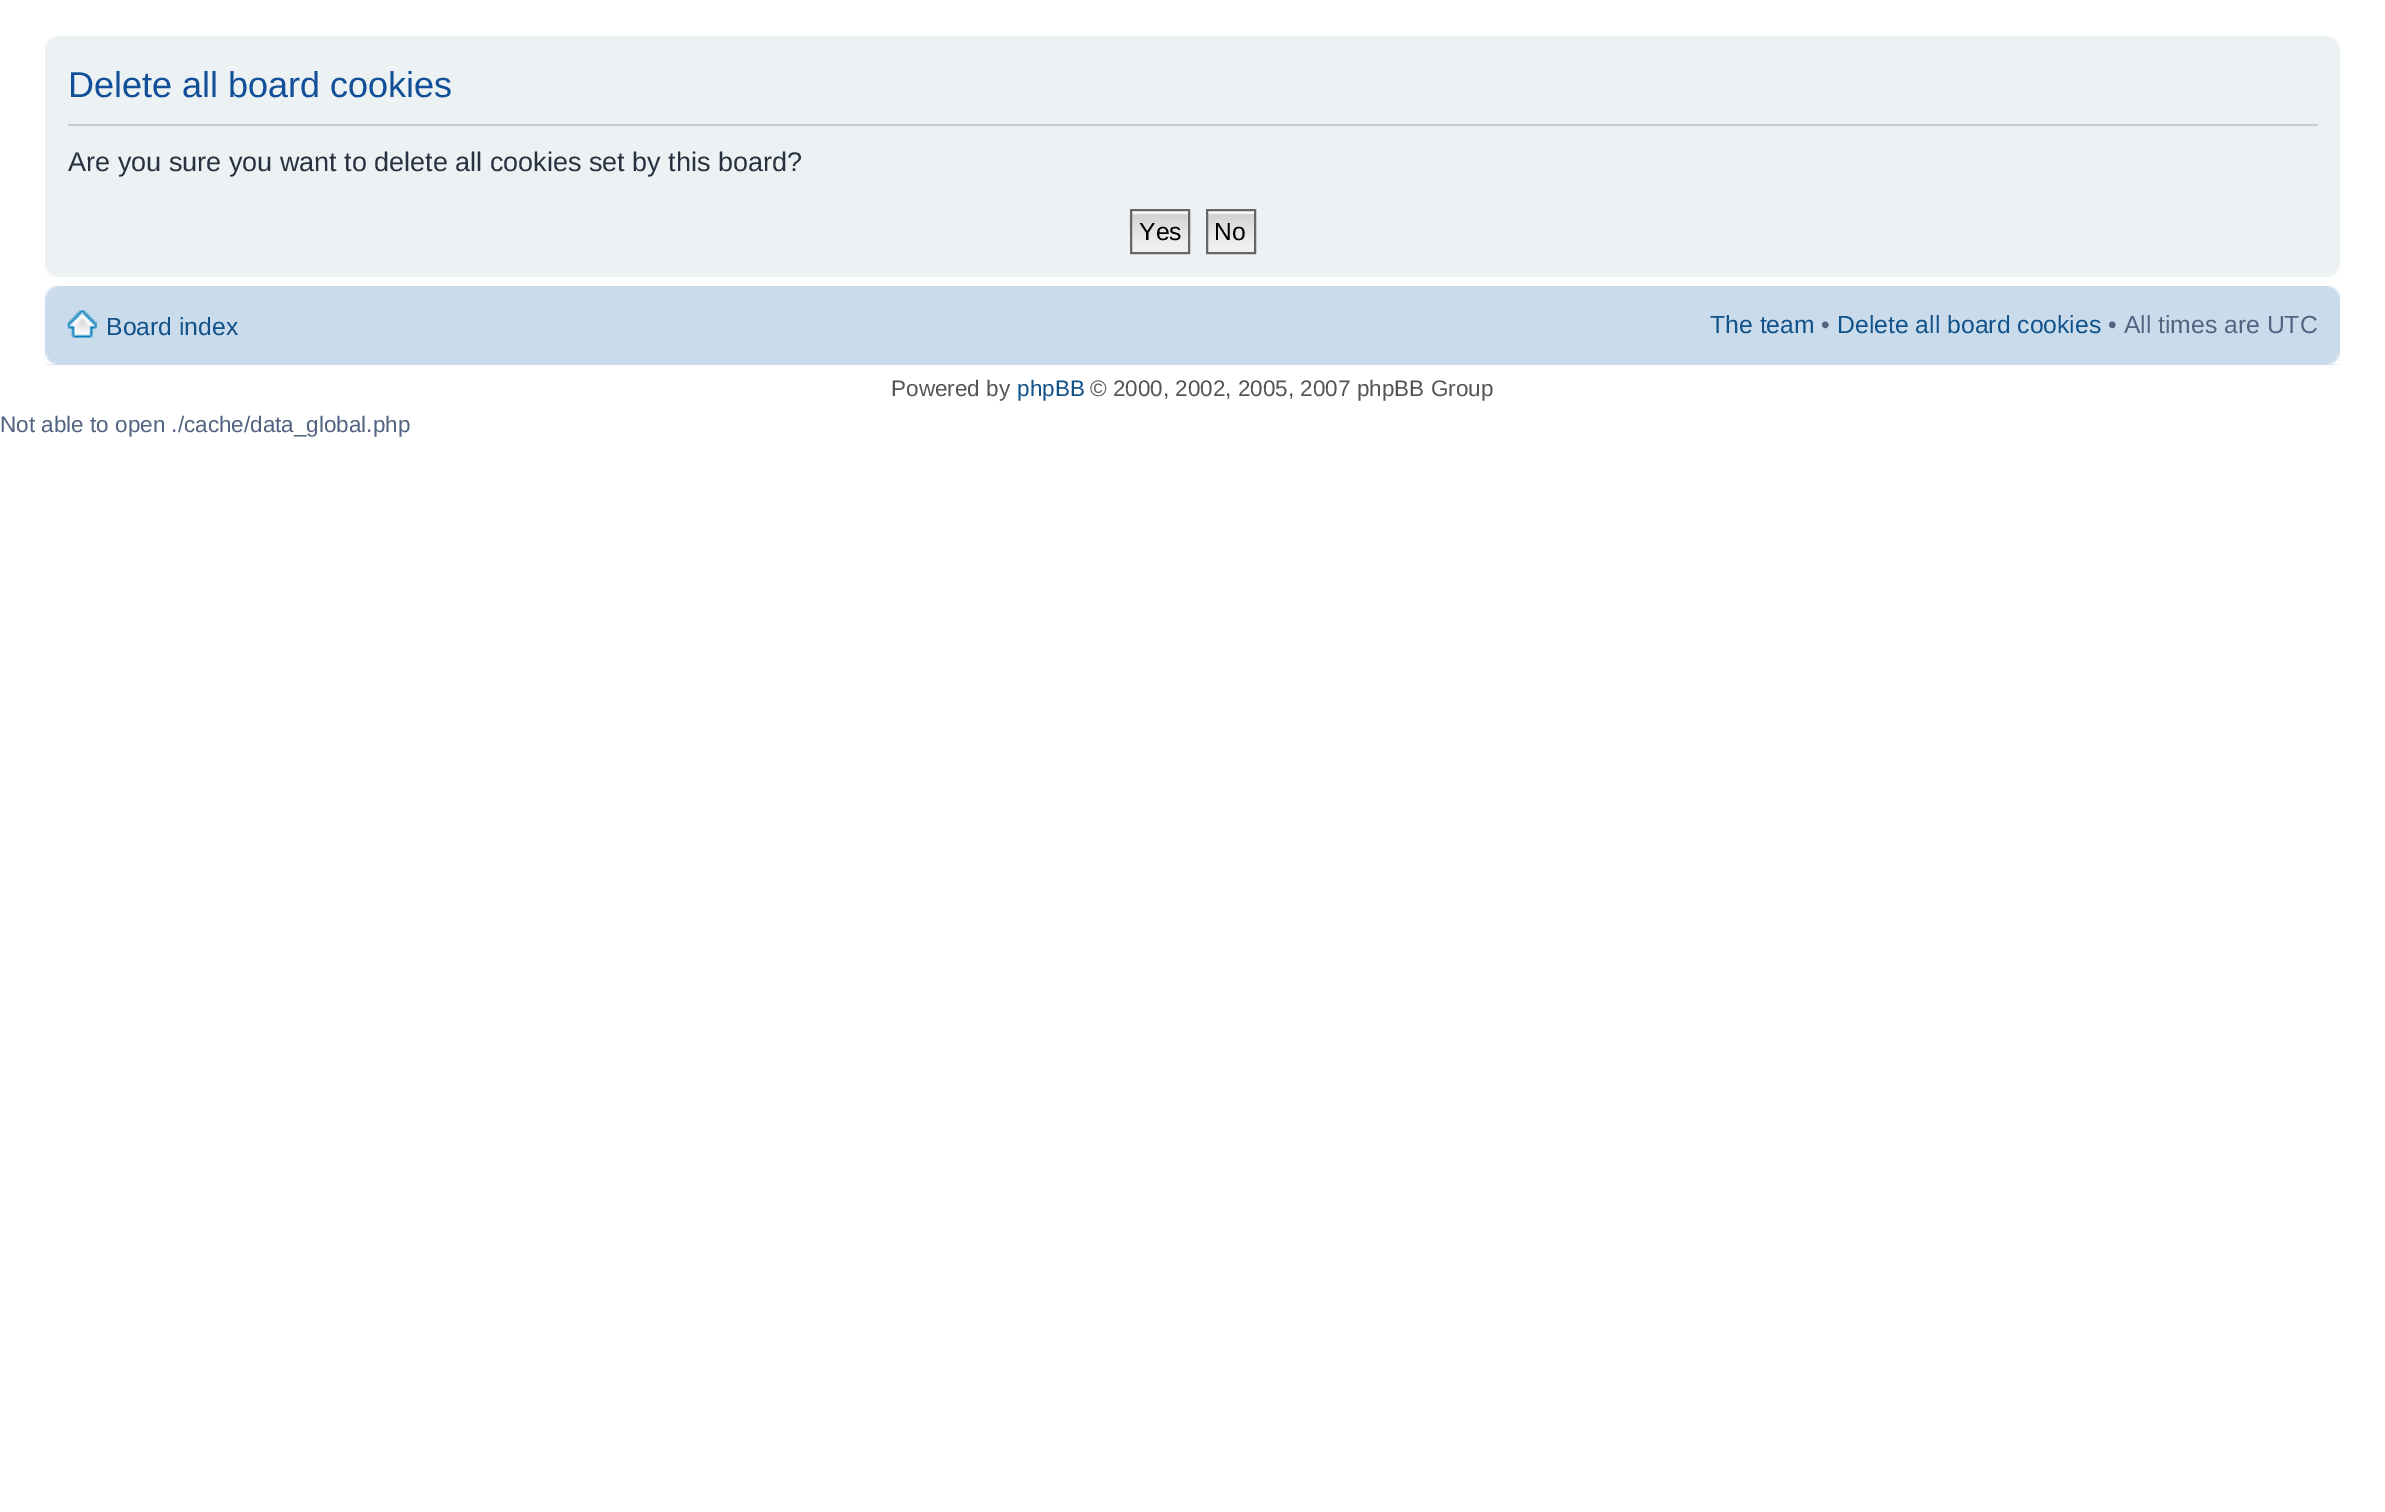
%!PS
<< /PageSize [2385 1512] >> setpagedevice
/rgb { 3 { 255 div 3 1 roll } repeat setrgbcolor } def
/font { [ exch dup neg 0 0 3 -1 roll 0 0 ] selectfont } def
/picture { 5 dict begin { /h /w /y /x /name } { exch def } forall
  gsave x y translate w h scale
  w h 8 [w 0 0 h 0 0] name (r) file false 3 colorimage grestore end } def
0 1512 translate 1 -1 scale
4 setmiterlimit
255 255 255 rgb
0 0 2385 1512 rectfill
236 241 243 rgb
45 36 2295 241 rectfill
(img/1.rgb) 45 36 11 11 picture
(img/2.rgb) 2330 36 10 11 picture
204 204 204 rgb
68 124 2250 2 rectfill
250 250 250 rgb
1132 211 56 1 rectfill
(img/3.rgb) 1129 211 62 43 picture
102 102 102 rgb
2 setlinewidth
1131 210 58 43 rectstroke
250 250 250 rgb
1208 211 46 1 rectfill
(img/4.rgb) 1208 212 46 40 picture
102 102 102 rgb
1207 210 48 43 rectstroke
(img/5.rgb) 45 266 10 11 picture
(img/6.rgb) 2330 266 10 11 picture
202 220 235 rgb
45 286 2295 79 rectfill
(img/7.rgb) 45 286 12 11 picture
(img/8.rgb) 2328 286 12 11 picture
(img/9.rgb) 67 310 30 28 picture
(img/10.rgb) 45 353 12 12 picture
(img/11.rgb) 2328 353 12 12 picture
/LiberationSans-Regular 36 font
17 80 152 rgb
68 97 moveto (Delete all board cookies) show
/LiberationSans-Regular 27 font
40 49 63 rgb
68 171 moveto (Are you sure you want to delete all cookies set by this board?) show
/LiberationSans-Regular 24.75 font
0 0 0 rgb
1139 240 moveto (Yes) show
1214 240 moveto (No) show
16 82 137 rgb
106 335 moveto (Board index) show
1710 333 moveto (The team) show
83 100 130 rgb
1821 333 moveto (•) show
16 82 137 rgb
1837 333 moveto (Delete all board cookies) show
83 100 130 rgb
2108 333 moveto (• All times are UTC) show
/LiberationSans-Regular 22.5 font
85 85 85 rgb
891 396 moveto (Powered by) show
16 82 137 rgb
1017 396 moveto (phpBB) show
85 85 85 rgb
1090 396 moveto (© 2000, 2002, 2005, 2007 phpBB Group) show
83 100 130 rgb
0 432 moveto (Not able to open ./cache/data_global.php) show
showpage
